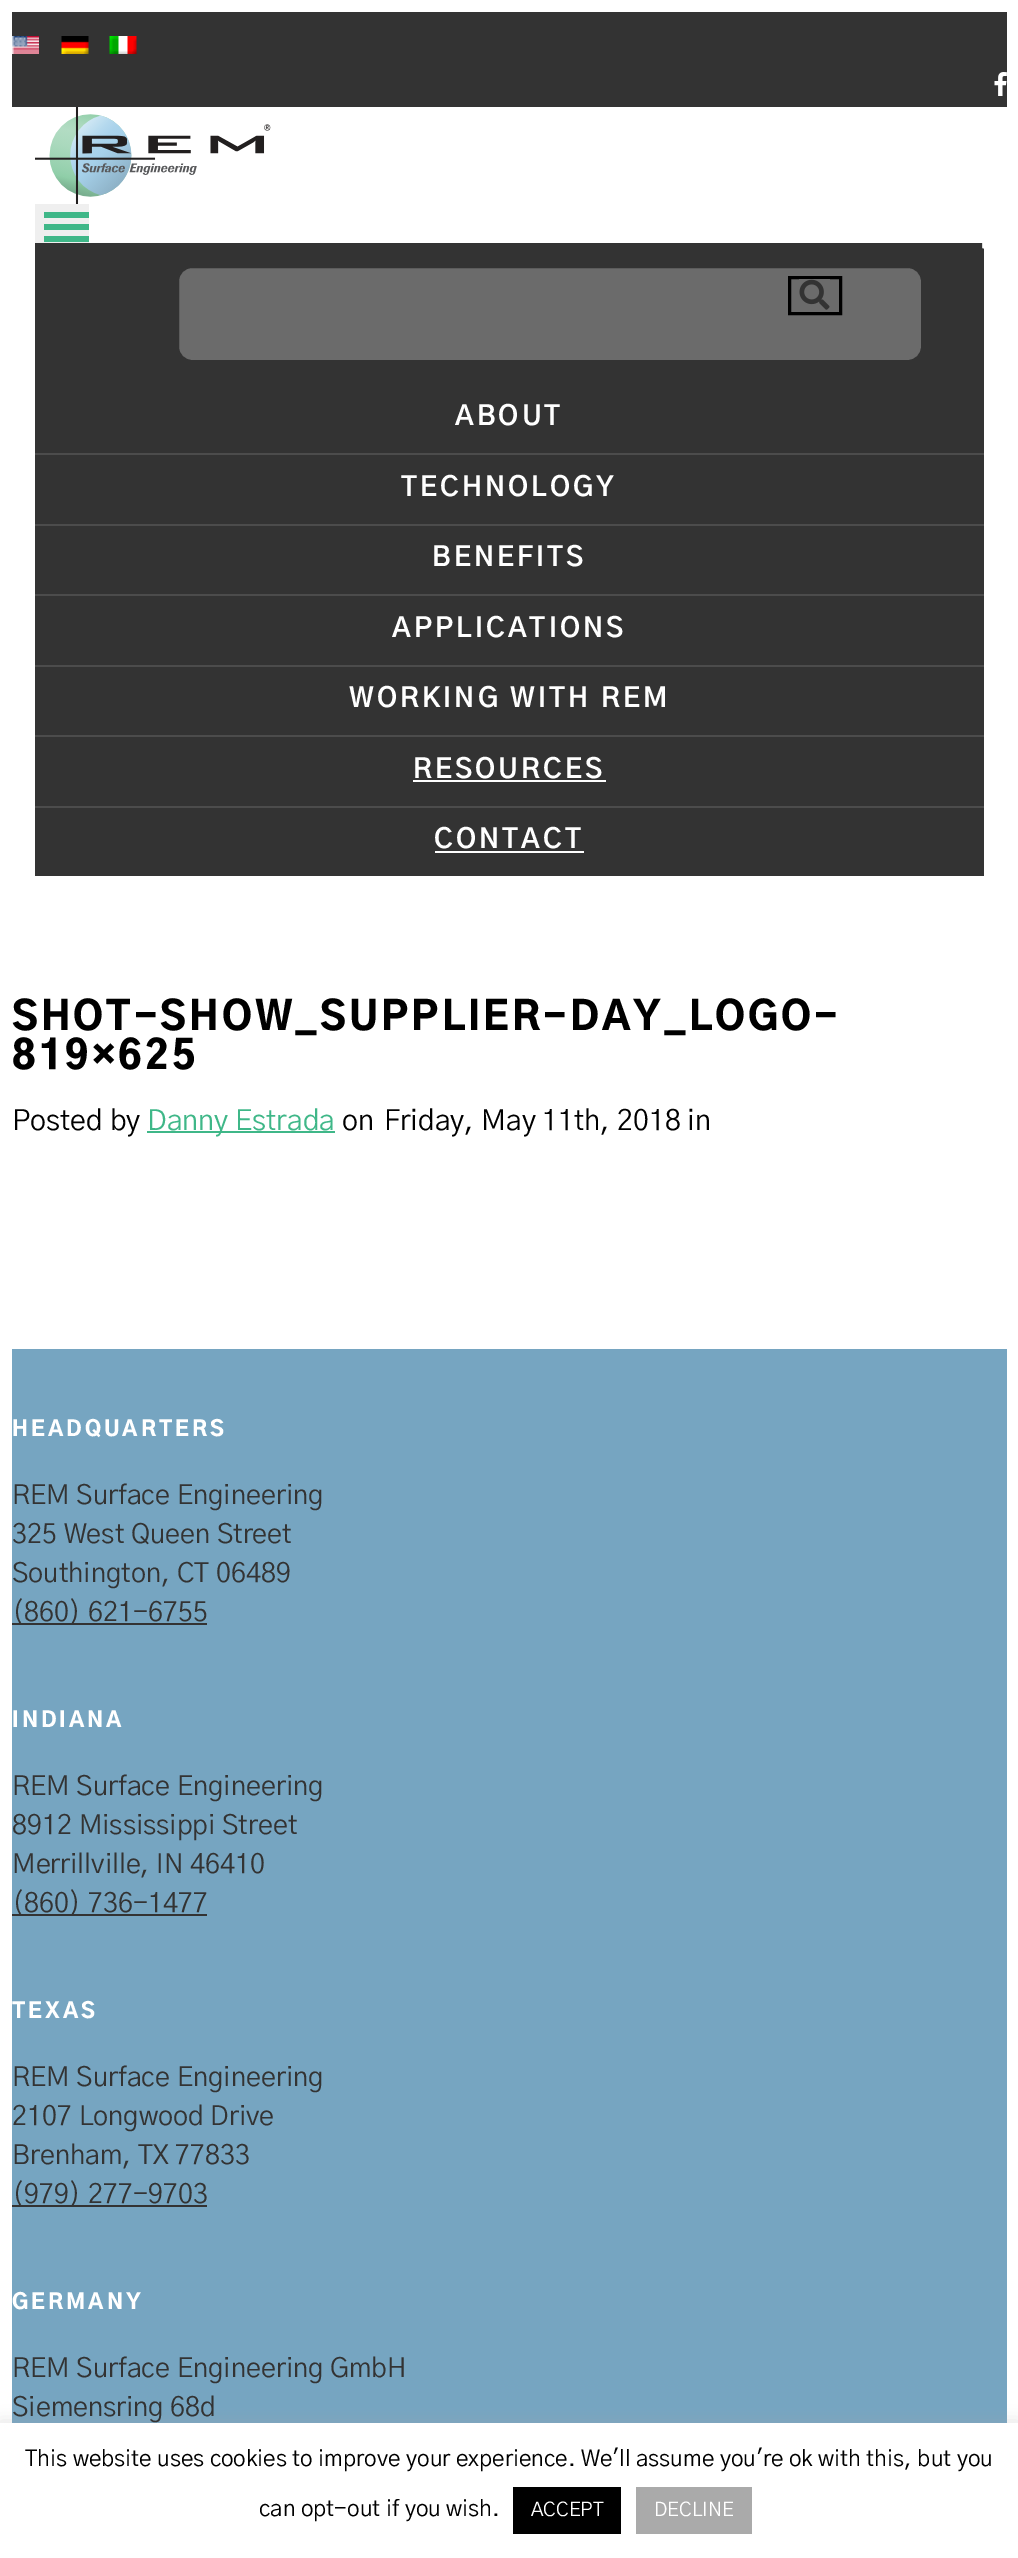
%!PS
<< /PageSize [1018 2558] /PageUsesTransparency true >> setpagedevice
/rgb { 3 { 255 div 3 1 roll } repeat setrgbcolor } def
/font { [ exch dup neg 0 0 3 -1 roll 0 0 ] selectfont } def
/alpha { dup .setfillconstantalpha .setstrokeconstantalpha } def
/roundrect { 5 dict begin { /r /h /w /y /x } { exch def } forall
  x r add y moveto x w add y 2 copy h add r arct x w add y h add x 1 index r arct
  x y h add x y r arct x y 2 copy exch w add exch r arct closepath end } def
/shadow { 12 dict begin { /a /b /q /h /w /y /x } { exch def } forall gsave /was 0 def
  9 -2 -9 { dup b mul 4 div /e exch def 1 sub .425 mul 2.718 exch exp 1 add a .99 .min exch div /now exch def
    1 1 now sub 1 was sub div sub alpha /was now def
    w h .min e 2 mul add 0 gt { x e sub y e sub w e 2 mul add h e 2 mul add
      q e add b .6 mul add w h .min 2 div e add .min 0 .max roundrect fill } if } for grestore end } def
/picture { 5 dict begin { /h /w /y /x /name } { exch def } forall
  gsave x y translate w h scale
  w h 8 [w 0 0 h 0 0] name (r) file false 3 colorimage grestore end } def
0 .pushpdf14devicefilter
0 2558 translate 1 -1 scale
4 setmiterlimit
255 255 255 rgb
0 0 1018 2558 rectfill
51 51 51 rgb
12 12 995 95 rectfill
(img/1.rgb) 12 36 27 18 picture
(img/2.rgb) 61 36 28 18 picture
(img/3.rgb) 109 36 28 18 picture
(img/4.rgb) 994 72 13 24 picture
35 243 949 633 rectfill
(img/5.rgb) 982 243 2 6 picture
(img/6.rgb) 35 107 236 97 picture
[
  [35 204 54 39 239 239 239]
  [44 212 45 6 63 183 136]
  [44 224 45 6 63 183 136]
  [44 236 45 6 63 183 136]
] { aload pop rgb rectfill } forall
107 107 107 rgb
178 267 744 94 14 roundrect gsave fill grestore
51 51 51 rgb
2 setlinewidth
stroke
0 0 0 rgb
3 setlinewidth
789.5 277.5 51 36 rectstroke
(img/7.rgb) 799 279 31 31 picture
[
  [35 453 949 2 76 76 76]
  [35 524 949 2 76 76 76]
  [35 594 949 2 76 76 76]
  [35 665 949 2 76 76 76]
  [35 735 949 2 76 76 76]
  [35 806 949 2 76 76 76]
  [413 780 193 2 255 255 255]
  [435 851 149 2 255 255 255]
  [147 1131 188 2 63 183 136]
  [12 1349 995 1074 118 165 193]
  [12 1623 195 2 51 51 51]
  [12 1914 195 2 51 51 51]
  [12 2205 195 2 51 51 51]
] { aload pop rgb rectfill } forall
172 171 171 rgb
0 2421 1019 137 0 7.5 0.3 shadow
[
  [0 2423 1018 135 255 255 255]
  [513 2487 108 47 0 0 0]
  [636 2487 116 47 170 170 170]
] { aload pop rgb rectfill } forall
/GothicA1-Bold 27 font
255 255 255 rgb
455 425 moveto 3 0 (ABOUT) ashow
401 496 moveto 3 0 (TECHNOLOGY) ashow
432 566 moveto 3 0 (BENEFITS) ashow
392 637 moveto 3 0 (APPLICATIONS) ashow
349 707 moveto 3 0 (WORKING WITH REM) ashow
413 778 moveto 3 0 (RESOURCES) ashow
434 848 moveto 3 0 (CONTACT) ashow
/GothicA1-Black 39 font
0 0 0 rgb
12 1030 moveto 3 0 (SHOT-SHOW_SUPPLIER-DAY_LOGO-) ashow
12 1069 moveto 3 0 (819×625) ashow
/GothicA1-Regular 28.5 font
12 1130 moveto (Posted by) show
63 183 136 rgb
147 1130 moveto (Danny Estrada) show
0 0 0 rgb
342 1130 moveto (on) show
384 1130 moveto (Friday, May 11th, 2018 in) show
/GothicA1-Black 21 font
255 255 255 rgb
12 1436 moveto 3 0 (HEADQUARTERS) ashow
/GothicA1-Regular 27 font
51 51 51 rgb
[
  [(REM Surface Engineering) 12 1504]
  [(325 West Queen Street) 12 1543]
  [(Southington, CT 06489) 12 1582]
  [(\(860\) 621-6755) 12 1621]
] { aload pop moveto show } forall
/GothicA1-Black 21 font
255 255 255 rgb
12 1727 moveto 3 0 (INDIANA) ashow
/GothicA1-Regular 27 font
51 51 51 rgb
[
  [(REM Surface Engineering) 12 1795]
  [(8912 Mississippi Street) 12 1834]
  [(Merrillville, IN 46410) 12 1873]
  [(\(860\) 736-1477) 12 1912]
] { aload pop moveto show } forall
/GothicA1-Black 21 font
255 255 255 rgb
12 2018 moveto 3 0 (TEXAS) ashow
/GothicA1-Regular 27 font
51 51 51 rgb
[
  [(REM Surface Engineering) 12 2086]
  [(2107 Longwood Drive) 12 2125]
  [(Brenham, TX 77833) 12 2164]
  [(\(979\) 277-9703) 12 2203]
] { aload pop moveto show } forall
/GothicA1-Black 21 font
255 255 255 rgb
12 2309 moveto 3 0 (GERMANY) ashow
/GothicA1-Regular 27 font
51 51 51 rgb
12 2377 moveto (REM Surface Engineering GmbH) show
12 2416 moveto (Siemensring 68d) show
/GothicA1-Regular 22.5 font
0 0 0 rgb
25 2466 moveto (This website uses cookies to improve your experience. We'll assume you're ok with this, but you) show
259 2516 moveto (can opt-out if you wish.) show
/GothicA1-Regular 19.5 font
255 255 255 rgb
531 2516 moveto (ACCEPT) show
654 2516 moveto (DECLINE) show
.poppdf14devicefilter showpage
